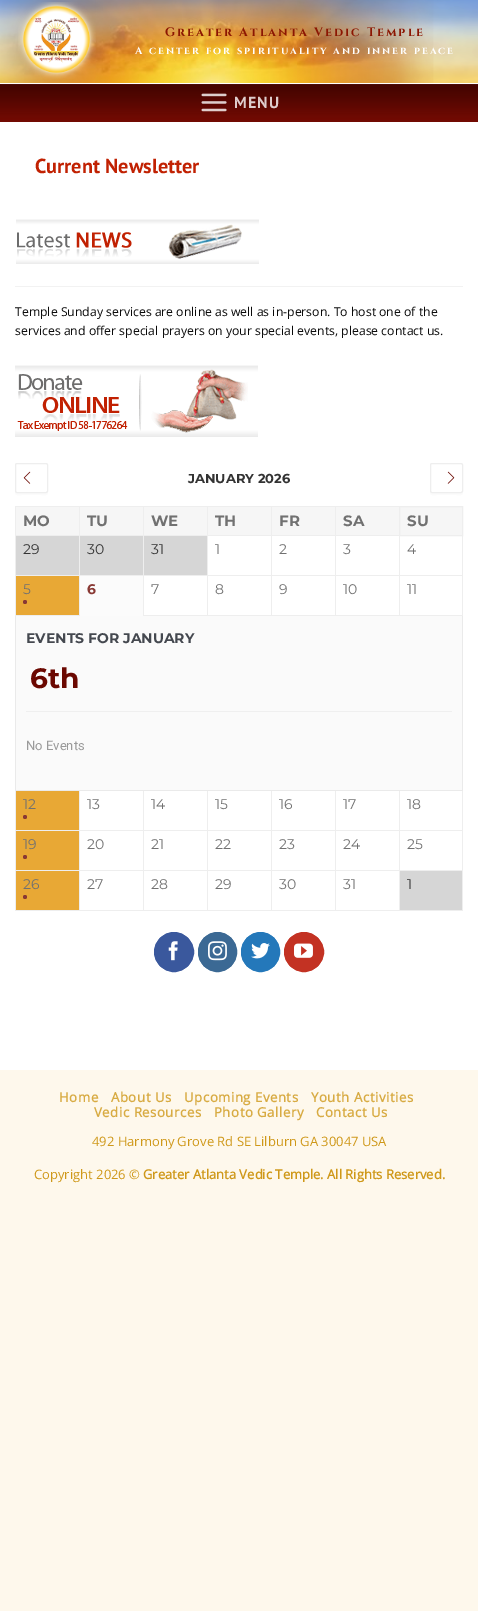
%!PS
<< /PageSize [478 1611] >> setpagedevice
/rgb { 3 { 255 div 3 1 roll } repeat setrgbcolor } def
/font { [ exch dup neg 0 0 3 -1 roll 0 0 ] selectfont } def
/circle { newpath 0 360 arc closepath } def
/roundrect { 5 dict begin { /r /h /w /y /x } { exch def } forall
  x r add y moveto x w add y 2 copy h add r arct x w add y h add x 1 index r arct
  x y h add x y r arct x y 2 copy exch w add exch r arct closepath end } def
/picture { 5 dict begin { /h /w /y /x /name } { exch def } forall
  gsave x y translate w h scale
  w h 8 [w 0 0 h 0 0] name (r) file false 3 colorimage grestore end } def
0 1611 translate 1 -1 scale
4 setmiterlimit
254 248 236 rgb
0 0 478 1611 rectfill
(img/1.rgb) 0 0 478 83 picture
(img/2.rgb) 18 2 78 78 picture
255 255 255 rgb
0 83 478 987 rectfill
(img/3.rgb) 0 84 478 38 picture
(img/4.rgb) 201 93 26 19 picture
(img/5.rgb) 16 219 243 45 picture
242 242 242 rgb
15 286 448 1 rectfill
(img/6.rgb) 15 365 243 72 picture
251 251 251 rgb
15 491 moveto 15 496 16.5 495 22 495 curveto 41 495 lineto 46.5 495 48 496 48 491 curveto 48 492 47 493 46 493 curveto 17 493 lineto 16 493 15 492 15 491 curveto closepath fill
238 238 238 rgb
15.5 463.5 32 29 1.5 roundrect stroke
(img/7.rgb) 23 471 8 13 picture
251 251 251 rgb
430 491 moveto 430 496 431.5 495 437 495 curveto 456 495 lineto 461.5 495 463 496 463 491 curveto 463 492 462 493 461 493 curveto 432 493 lineto 431 493 430 492 430 491 curveto closepath fill
238 238 238 rgb
430.5 463.5 32 29 1.5 roundrect stroke
(img/8.rgb) 447 471 8 13 picture
[
  [16 507 63 28 246 246 246]
  [15 506 384 1 238 238 238]
  [15 535 384 1 238 238 238]
  [15 506 1 30 238 238 238]
  [80 507 63 28 246 246 246]
  [79 506 1 30 238 238 238]
  [144 507 63 28 246 246 246]
  [143 506 1 30 238 238 238]
  [208 507 63 28 246 246 246]
  [207 506 1 30 238 238 238]
  [272 507 63 28 246 246 246]
  [271 506 1 30 238 238 238]
  [336 507 63 28 246 246 246]
  [335 506 1 30 238 238 238]
] { aload pop rgb rectfill } forall
246 246 246 rgb
399.5 506.5 moveto 462.5 506.5 lineto 462.5 535.5 lineto 399.5 535.5 lineto closepath gsave fill grestore
238 238 238 rgb
stroke
[
  [16 536 63 39 214 214 214]
  [15 575 384 1 238 238 238]
  [15 536 1 40 238 238 238]
  [80 536 63 39 214 214 214]
  [79 536 1 80 238 238 238]
  [144 536 63 39 214 214 214]
  [143 536 1 40 238 238 238]
  [207 536 1 40 238 238 238]
  [271 536 1 40 238 238 238]
  [335 536 1 40 238 238 238]
  [462 536 1 80 238 238 238]
  [399 575 64 1 238 238 238]
  [399 536 1 40 238 238 238]
  [16 576 63 39 232 168 53]
  [15 615 64 1 238 238 238]
  [15 576 1 40 238 238 238]
] { aload pop rgb rectfill } forall
137 57 52 rgb
25 602 2 circle fill
[
  [80 576 63 40 251 251 251]
  [143 615 320 1 238 238 238]
  [143 576 1 40 238 238 238]
  [207 576 1 40 238 238 238]
  [271 576 1 40 238 238 238]
  [335 576 1 40 238 238 238]
  [399 576 1 40 238 238 238]
  [16 616 446 174 250 250 250]
  [462 616 1 175 234 234 234]
  [15 790 448 1 234 234 234]
  [15 616 1 175 234 234 234]
  [26 711 426 1 239 239 239]
  [16 791 63 39 232 168 53]
  [15 830 384 1 238 238 238]
  [15 791 1 40 238 238 238]
] { aload pop rgb rectfill } forall
137 57 52 rgb
25 817 2 circle fill
[
  [79 791 1 40 238 238 238]
  [143 791 1 40 238 238 238]
  [207 791 1 40 238 238 238]
  [271 791 1 40 238 238 238]
  [335 791 1 40 238 238 238]
  [462 791 1 120 238 238 238]
  [399 830 64 1 238 238 238]
  [399 791 1 40 238 238 238]
  [16 831 63 39 232 168 53]
  [15 870 448 1 238 238 238]
  [15 831 1 40 238 238 238]
] { aload pop rgb rectfill } forall
137 57 52 rgb
25 857 2 circle fill
[
  [79 831 1 40 238 238 238]
  [143 831 1 40 238 238 238]
  [207 831 1 40 238 238 238]
  [271 831 1 40 238 238 238]
  [335 831 1 40 238 238 238]
  [399 831 1 40 238 238 238]
  [16 871 63 39 232 168 53]
  [15 910 448 1 238 238 238]
  [15 871 1 40 238 238 238]
] { aload pop rgb rectfill } forall
137 57 52 rgb
25 897 2 circle fill
[
  [79 871 1 40 238 238 238]
  [143 871 1 40 238 238 238]
  [207 871 1 40 238 238 238]
  [271 871 1 40 238 238 238]
  [335 871 1 40 238 238 238]
  [400 871 62 39 214 214 214]
  [399 871 1 40 238 238 238]
] { aload pop rgb rectfill } forall
58 88 157 rgb
174 952 19.5 circle gsave fill grestore
stroke
(img/9.rgb) 168 941 10 20 picture
59 105 148 rgb
198.5 932.5 38 39 19 roundrect gsave fill grestore
stroke
(img/10.rgb) 208 941 19 20 picture
36 120 186 rgb
241.5 932.5 38 39 19 roundrect gsave fill grestore
stroke
(img/11.rgb) 251 943 19 16 picture
195 50 35 rgb
304 952 19.5 circle gsave fill grestore
stroke
(img/12.rgb) 294 943 19 15 picture
/Cinzel-Bold 12.25 font
140 22 2 rgb
165 36 moveto 2 0 (Greater Atlanta Vedic Temple) ashow
/Cinzel-Bold 10.4 font
255 255 255 rgb
135 54 moveto 2 0 (A center for spirituality and inner peace) ashow
/PTSans-Bold 16 font
222 205 204 rgb
234 108 moveto 1 0 (MENU) ashow
/PTSans-Bold 20.25 font
193 33 2 rgb
35 173 moveto (Current Newsletter) show
/OpenSans-Regular 12.25 font
10 10 10 rgb
15 316 moveto (Temple Sunday services are online as well as in-person. To host one of the) show
15 335 moveto (services and offer special prayers on your special events, please contact us.) show
/Montserrat-Bold 13 font
51 51 51 rgb
188 483 moveto (JANUARY 2026) show
/Montserrat-Bold 15 font
113 113 113 rgb
[
  [(MO) 23 526]
  [(TU) 87 526]
  [(WE) 151 526]
  [(TH) 215 526]
  [(FR) 279 526]
  [(SA) 343 526]
  [(SU) 407 526]
] { aload pop moveto show } forall
/Montserrat-Regular 14 font
51 51 51 rgb
[
  [(29) 23 554]
  [(30) 87 554]
  [(31) 151 554]
] { aload pop moveto show } forall
113 113 113 rgb
[
  [(1) 215 554]
  [(2) 279 554]
  [(3) 343 554]
  [(4) 407 554]
  [(5) 23 594]
] { aload pop moveto show } forall
/Montserrat-Bold 14 font
137 57 52 rgb
87 594 moveto (6) show
/Montserrat-Regular 14 font
113 113 113 rgb
[
  [(7) 151 594]
  [(8) 215 594]
  [(9) 279 594]
  [(10) 343 594]
  [(11) 407 594]
] { aload pop moveto show } forall
/Montserrat-Bold 14 font
68 72 79 rgb
26 643 moveto (EVENTS FOR JANUARY) show
/Montserrat-Bold 28 font
107 8 1 rgb
30 688 moveto (6th) show
/Roboto-Regular 13 font
154 154 154 rgb
26 750 moveto (No Events) show
/Montserrat-Regular 14 font
113 113 113 rgb
[
  [(12) 23 809]
  [(13) 87 809]
  [(14) 151 809]
  [(15) 215 809]
  [(16) 279 809]
  [(17) 343 809]
  [(18) 407 809]
  [(19) 23 849]
  [(20) 87 849]
  [(21) 151 849]
  [(22) 215 849]
  [(23) 279 849]
  [(24) 343 849]
  [(25) 407 849]
  [(26) 23 889]
  [(27) 87 889]
  [(28) 151 889]
  [(29) 215 889]
  [(30) 279 889]
  [(31) 343 889]
] { aload pop moveto show } forall
51 51 51 rgb
407 889 moveto (1) show
/OpenSans-Bold 13.25 font
216 171 66 rgb
59 1102 moveto 0.5 0 (Home) ashow
111 1102 moveto 0.5 0 (About Us) ashow
184 1102 moveto 0.5 0 (Upcoming Events) ashow
311 1102 moveto 0.5 0 (Youth Activities) ashow
94 1117 moveto 0.5 0 (Vedic Resources) ashow
214 1117 moveto 0.5 0 (Photo Gallery) ashow
316 1117 moveto 0.5 0 (Contact Us) ashow
/OpenSans-Regular 13 font
207 152 24 rgb
92 1146 moveto (492 Harmony Grove Rd SE Lilburn GA 30047 USA) show
34 1179 moveto (Copyright 2026 ©) show
/OpenSans-Bold 13 font
143 1179 moveto (Greater Atlanta Vedic Temple. All Rights Reserved.) show
showpage
